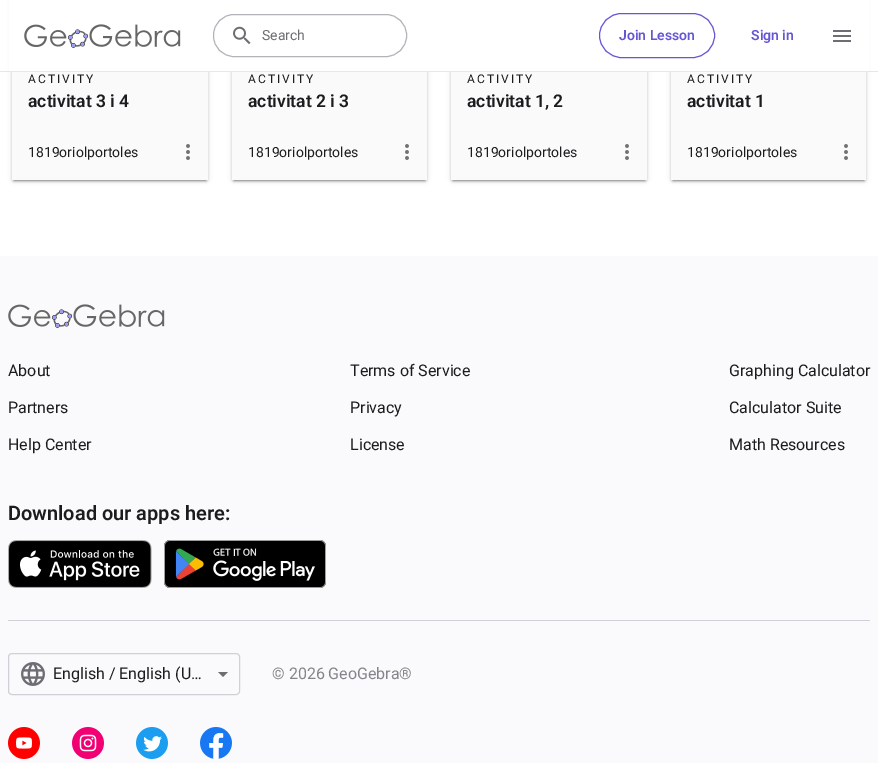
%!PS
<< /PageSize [878 763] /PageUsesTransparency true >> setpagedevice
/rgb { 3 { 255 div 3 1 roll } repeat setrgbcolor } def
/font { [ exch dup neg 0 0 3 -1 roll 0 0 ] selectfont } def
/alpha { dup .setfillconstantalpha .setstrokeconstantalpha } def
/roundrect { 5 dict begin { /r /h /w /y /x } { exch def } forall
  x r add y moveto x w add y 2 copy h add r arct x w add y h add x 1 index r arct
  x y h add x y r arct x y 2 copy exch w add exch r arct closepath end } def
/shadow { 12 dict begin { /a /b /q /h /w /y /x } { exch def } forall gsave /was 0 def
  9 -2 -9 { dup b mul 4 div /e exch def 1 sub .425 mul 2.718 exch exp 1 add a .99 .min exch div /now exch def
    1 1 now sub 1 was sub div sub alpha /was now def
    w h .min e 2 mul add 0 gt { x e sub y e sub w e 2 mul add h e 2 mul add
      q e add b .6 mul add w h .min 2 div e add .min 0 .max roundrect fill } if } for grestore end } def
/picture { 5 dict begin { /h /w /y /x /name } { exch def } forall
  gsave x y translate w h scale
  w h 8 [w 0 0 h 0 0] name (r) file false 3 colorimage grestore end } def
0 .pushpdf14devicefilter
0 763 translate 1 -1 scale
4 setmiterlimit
255 255 255 rgb
0 0 878 763 rectfill
0 0 0 rgb
12 -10 196 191 2 2.5 0.12 shadow
12 -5 196 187 2 1 0.14 shadow
14 -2 192 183 0 0.5 0.2 shadow
232 -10 195 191 2 2.5 0.12 shadow
232 -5 195 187 2 1 0.14 shadow
234 -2 191 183 0 0.5 0.2 shadow
451 -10 196 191 2 2.5 0.12 shadow
451 -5 196 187 2 1 0.14 shadow
453 -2 192 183 0 0.5 0.2 shadow
671 -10 195 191 2 2.5 0.12 shadow
671 -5 195 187 2 1 0.14 shadow
673 -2 191 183 0 0.5 0.2 shadow
255 255 255 rgb
9 0 860 71 rectfill
230 230 235 rgb
0 71 878 1 rectfill
(img/1.rgb) 24 24 157 24 picture
180 179 186 rgb
213.5 14.5 193 42 20.5 roundrect stroke
(img/2.rgb) 233 26 18 19 picture
101 87 210 rgb
599.5 13.5 115 44 22 roundrect stroke
(img/3.rgb) 833 30 18 12 picture
250 250 250 rgb
12 72 196 108 rectfill
(img/4.rgb) 186 144 4 16 picture
232 72 195 108 rectfill
(img/4.rgb) 405 144 4 16 picture
451 72 196 108 rectfill
(img/4.rgb) 625 144 4 16 picture
671 72 195 108 rectfill
(img/4.rgb) 844 144 4 16 picture
250 250 252 rgb
0 256 878 507 rectfill
(img/5.rgb) 8 304 157 24 picture
(img/6.rgb) 8 540 144 48 picture
(img/7.rgb) 164 540 162 48 picture
209 208 214 rgb
8 620 862 1 rectfill
8.5 653.5 231 41 3.5 roundrect stroke
(img/8.rgb) 21 662 24 24 picture
110 109 115 rgb
218 672 moveto 223 677 lineto 228 672 lineto closepath fill
(img/9.rgb) 8 727 32 32 picture
(img/10.rgb) 72 727 32 32 picture
(img/11.rgb) 136 727 32 32 picture
(img/12.rgb) 200 727 32 32 picture
/Roboto-Regular 14 font
262 40 moveto (Search) show
/Roboto-SemiBold 14 font
101 87 210 rgb
619 40 moveto (Join Lesson) show
751 40 moveto (Sign in) show
/Roboto-Regular 12 font
28 28 31 rgb
28 83 moveto 2 0 (ACTIVITY) ashow
/Roboto-SemiBold 17.5 font
28 107 moveto (activitat 3 i 4) show
/Roboto-Regular 14 font
28 157 moveto (1819oriolportoles) show
/Roboto-Regular 12 font
248 83 moveto 2 0 (ACTIVITY) ashow
/Roboto-SemiBold 17.5 font
248 107 moveto (activitat 2 i 3) show
/Roboto-Regular 14 font
248 157 moveto (1819oriolportoles) show
/Roboto-Regular 12 font
467 83 moveto 2 0 (ACTIVITY) ashow
/Roboto-SemiBold 17.5 font
467 107 moveto (activitat 1, 2) show
/Roboto-Regular 14 font
467 157 moveto (1819oriolportoles) show
/Roboto-Regular 12 font
687 83 moveto 2 0 (ACTIVITY) ashow
/Roboto-SemiBold 17.5 font
687 107 moveto (activitat 1) show
/Roboto-Regular 14 font
687 157 moveto (1819oriolportoles) show
/Roboto-Regular 16 font
[
  [(About) 8 376]
  [(Partners) 8 413]
  [(Help Center) 8 450]
  [(Terms of Service) 350 376]
  [(Privacy) 350 413]
  [(License) 350 450]
  [(Graphing Calculator) 729 376]
  [(Calculator Suite) 729 413]
  [(Math Resources) 729 450]
] { aload pop moveto show } forall
/Roboto-SemiBold 20 font
8 520 moveto (Download our apps here:) show
/Roboto-Regular 16 font
53 679 moveto (English / English \(U…) show
133 132 138 rgb
272 679 moveto (© 2026 GeoGebra®) show
.poppdf14devicefilter showpage
